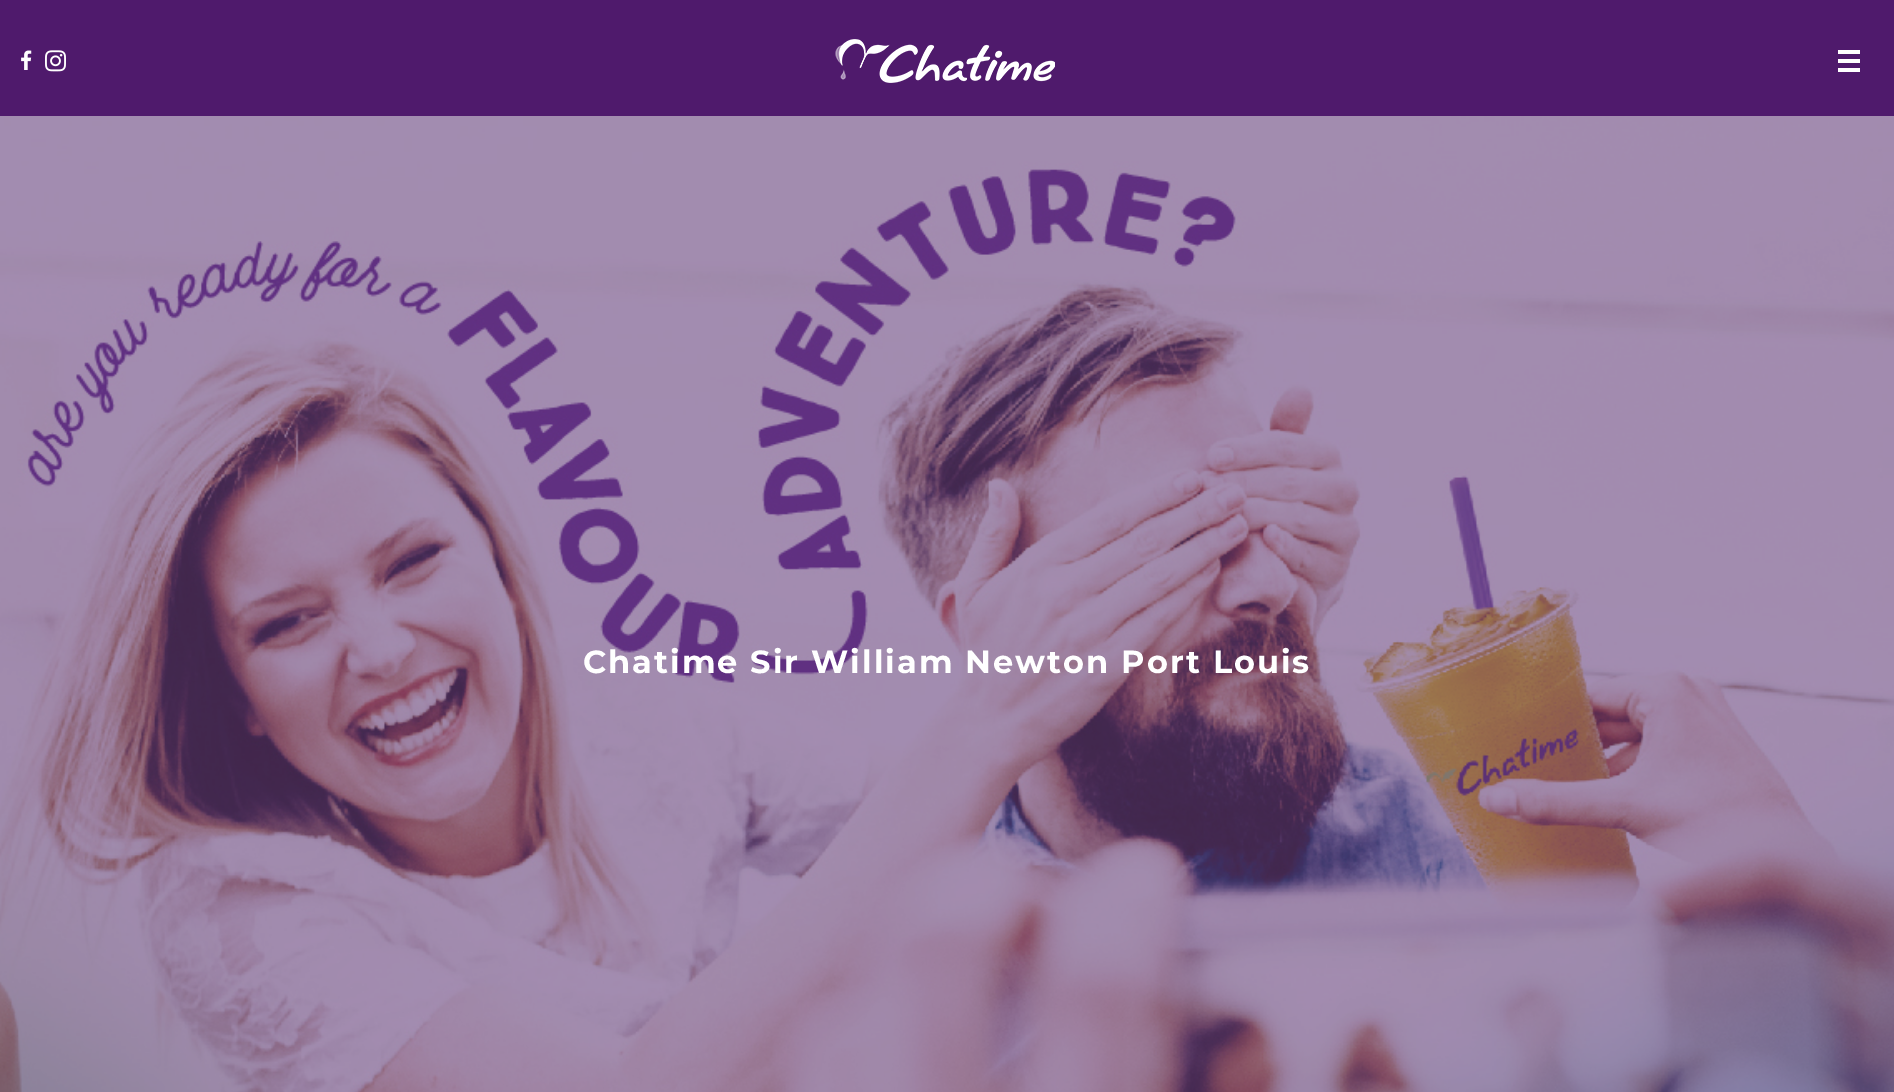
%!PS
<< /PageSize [1894 1092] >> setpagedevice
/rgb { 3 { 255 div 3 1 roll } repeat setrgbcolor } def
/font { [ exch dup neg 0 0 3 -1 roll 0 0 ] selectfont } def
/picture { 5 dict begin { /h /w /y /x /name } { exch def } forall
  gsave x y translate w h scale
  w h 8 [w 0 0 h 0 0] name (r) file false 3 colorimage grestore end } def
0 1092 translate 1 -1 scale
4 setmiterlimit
255 255 255 rgb
0 0 1894 1092 rectfill
79 26 108 rgb
0 0 1894 116 rectfill
(img/1.rgb) 21 50 11 20 picture
(img/2.rgb) 45 50 21 22 picture
(img/3.rgb) 835 39 220 44 picture
[
  [1838 50 22 4 255 255 255]
  [1838 59 22 4 255 255 255]
  [1838 68 22 4 255 255 255]
] { aload pop rgb rectfill } forall
(img/4.rgb) 0 116 1894 976 picture
/Montserrat-Thin 32 font
583 673 moveto 2 0 (Chatime Sir William Newton Port Louis) ashow
showpage
